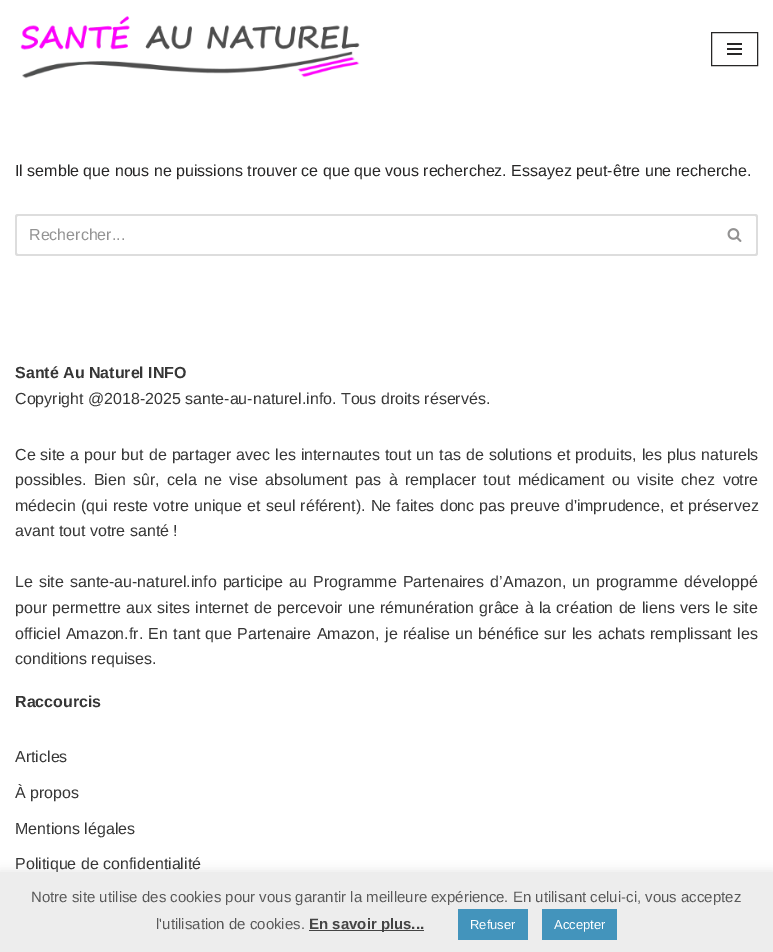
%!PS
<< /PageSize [773 952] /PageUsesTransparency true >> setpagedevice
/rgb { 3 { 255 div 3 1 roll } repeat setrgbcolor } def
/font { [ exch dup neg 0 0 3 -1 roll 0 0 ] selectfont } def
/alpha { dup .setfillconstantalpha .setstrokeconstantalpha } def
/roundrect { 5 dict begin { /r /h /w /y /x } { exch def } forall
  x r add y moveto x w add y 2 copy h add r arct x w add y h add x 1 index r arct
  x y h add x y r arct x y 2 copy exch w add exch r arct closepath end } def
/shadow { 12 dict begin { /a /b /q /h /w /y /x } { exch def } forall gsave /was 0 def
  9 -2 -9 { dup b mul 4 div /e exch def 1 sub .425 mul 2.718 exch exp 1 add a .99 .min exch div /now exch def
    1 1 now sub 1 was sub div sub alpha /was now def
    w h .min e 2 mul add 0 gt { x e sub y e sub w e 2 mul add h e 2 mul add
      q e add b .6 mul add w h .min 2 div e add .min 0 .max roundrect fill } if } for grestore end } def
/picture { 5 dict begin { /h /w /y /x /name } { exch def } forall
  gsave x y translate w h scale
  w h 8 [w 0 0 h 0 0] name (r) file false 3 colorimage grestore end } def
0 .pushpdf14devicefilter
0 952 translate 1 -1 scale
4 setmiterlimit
255 255 255 rgb
0 0 773 952 rectfill
(img/1.rgb) 20 16 340 63 picture
39 38 38 rgb
711.5 32.5 46 33 rectstroke
[
  [727 43 15 2 39 38 38]
  [727 48 15 2 39 38 38]
  [727 53 15 2 39 38 38]
] { aload pop rgb rectfill } forall
221 221 221 rgb
18 214 moveto 713 214 lineto 713 256 lineto 18 256 lineto 16 256 15 255 15 253 curveto 15 217 lineto 15 215 16 214 18 214 curveto closepath 18 216 moveto 713 216 lineto 713 254 lineto 18 254 lineto 17 254 17 254 17 253 curveto 17 217 lineto 17 216 17 216 18 216 curveto closepath eofill
713 214 moveto 755 214 lineto 757 214 758 215 758 217 curveto 758 253 lineto 758 255 757 256 755 256 curveto 713 256 lineto closepath 713 216 moveto 755 216 lineto 756 216 756 216 756 217 curveto 756 253 lineto 756 254 756 254 755 254 curveto 713 254 lineto closepath eofill
(img/2.rgb) 727 228 15 14 picture
172 171 171 rgb
0 871 773 80 0 5 0.3 shadow
/LiberationSans-Regular 16 font
39 38 38 rgb
15 176 moveto (Il semble que nous ne puissions trouver ce que que vous recherchez. Essayez peut-être une recherche.) show
147 147 147 rgb
29 240 moveto (Rechercher...) show
/LiberationSans-Bold 16 font
54 54 54 rgb
15 378 moveto (Santé Au Naturel INFO) show
/LiberationSans-Regular 16 font
15 404 moveto (Copyright @2018-2025 sante-au-naturel.info. Tous droits réservés.) show
15 460 moveto 0.6 0 32 (Ce site a pour but de partager avec les internautes tout un tas de solutions et produits, les plus naturels) widthshow
15 485 moveto 3 0 32 (possibles. Bien sûr, cela ne vise absolument pas à remplacer tout médicament ou visite chez votre) widthshow
15 511 moveto 0.75 0 32 (médecin \(qui reste votre unique et seul référent\). Ne faites donc pas preuve d'imprudence, et préservez) widthshow
15 536 moveto (avant tout votre santé !) show
15 587 moveto 1.6 0 32 (Le site sante-au-naturel.info participe au Programme Partenaires d’Amazon, un programme développé) widthshow
15 613 moveto 0.8 0 32 (pour permettre aux sites internet de percevoir une rémunération grâce à la création de liens vers le site) widthshow
15 639 moveto 0.9 0 32 (officiel Amazon.fr. En tant que Partenaire Amazon, je réalise un bénéfice sur les achats remplissant les) widthshow
15 664 moveto (conditions requises.) show
/LiberationSans-Bold 16 font
15 707 moveto (Raccourcis) show
/LiberationSans-Regular 16 font
[
  [(Articles) 15 762]
  [(À propos) 15 798]
  [(Mentions légales) 15 834]
  [(Politique de confidentialité) 15 869]
] { aload pop moveto show } forall
237 237 237 rgb
0 872 773 80 rectfill
/LiberationSans-Regular 15 font
89 89 89 rgb
31 902 moveto (Notre site utilise des cookies pour vous garantir la meilleure expérience. En utilisant celui-ci, vous acceptez) show
156 929 moveto (l'utilisation de cookies.) show
68 68 68 rgb
309 930 115 1 rectfill
/LiberationSans-Bold 15 font
309 929 moveto (En savoir plus...) show
67 148 188 rgb
458 909 70 31 rectfill
/LiberationSans-Regular 13 font
255 255 255 rgb
470 929 moveto (Refuser) show
67 148 188 rgb
542 909 75 31 rectfill
255 255 255 rgb
554 929 moveto (Accepter) show
.poppdf14devicefilter showpage
